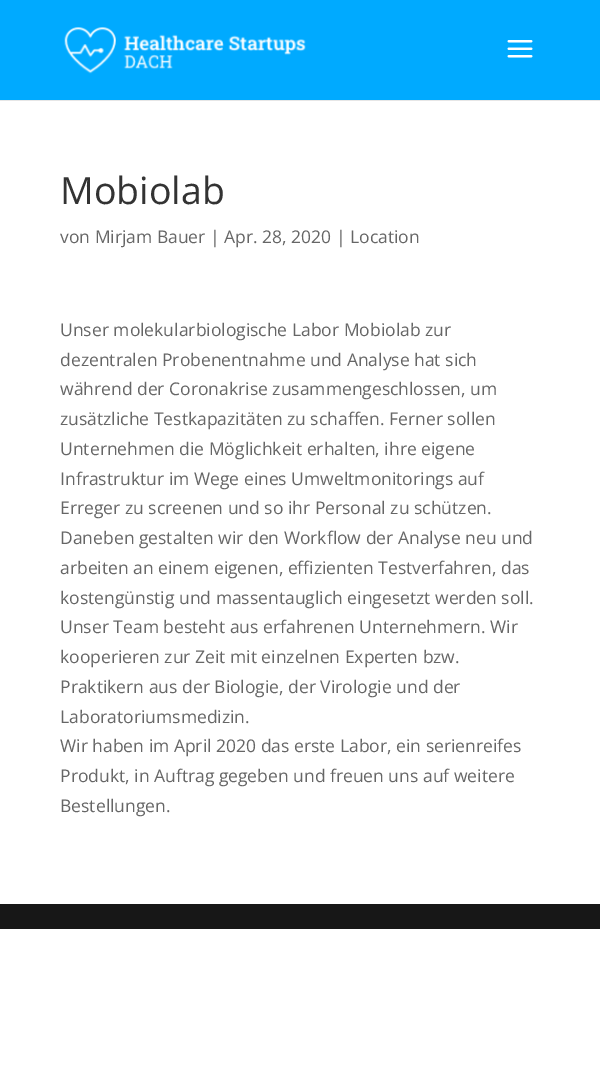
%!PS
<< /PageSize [600 1076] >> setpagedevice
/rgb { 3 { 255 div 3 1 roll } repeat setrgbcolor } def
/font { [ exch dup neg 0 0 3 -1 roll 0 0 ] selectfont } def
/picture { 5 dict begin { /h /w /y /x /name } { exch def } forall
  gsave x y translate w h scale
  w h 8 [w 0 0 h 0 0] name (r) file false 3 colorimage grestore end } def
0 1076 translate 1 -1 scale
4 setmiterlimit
255 255 255 rgb
0 0 600 1076 rectfill
230 230 230 rgb
0 100 600 1 rectfill
0 170 255 rgb
0 0 600 100 rectfill
(img/1.rgb) 64 27 242 47 picture
(img/2.rgb) 507 40 26 18 picture
23 23 23 rgb
0 904 600 25 rectfill
/OpenSans-Regular 37.5 font
51 51 51 rgb
60 204 moveto (Mobiolab) show
/OpenSans-Regular 17.5 font
102 102 102 rgb
[
  [(von Mirjam Bauer | Apr. 28, 2020 | Location) 60 243]
  [(Unser molekularbiologische Labor Mobiolab zur) 60 336]
  [(dezentralen Probenentnahme und Analyse hat sich) 60 366]
  [(während der Coronakrise zusammengeschlossen, um) 60 395]
  [(zusätzliche Testkapazitäten zu schaffen. Ferner sollen) 60 425]
  [(Unternehmen die Möglichkeit erhalten, ihre eigene) 60 455]
  [(Infrastruktur im Wege eines Umweltmonitorings auf) 60 485]
  [(Erreger zu screenen und so ihr Personal zu schützen.) 60 514]
  [(Daneben gestalten wir den Workflow der Analyse neu und) 60 544]
  [(arbeiten an einem eigenen, effizienten Testverfahren, das) 60 574]
  [(kostengünstig und massentauglich eingesetzt werden soll.) 60 604]
  [(Unser Team besteht aus erfahrenen Unternehmern. Wir) 60 633]
  [(kooperieren zur Zeit mit einzelnen Experten bzw.) 60 663]
  [(Praktikern aus der Biologie, der Virologie und der) 60 693]
  [(Laboratoriumsmedizin.) 60 723]
  [(Wir haben im April 2020 das erste Labor, ein serienreifes) 60 752]
  [(Produkt, in Auftrag gegeben und freuen uns auf weitere) 60 782]
  [(Bestellungen.) 60 812]
] { aload pop moveto show } forall
showpage
